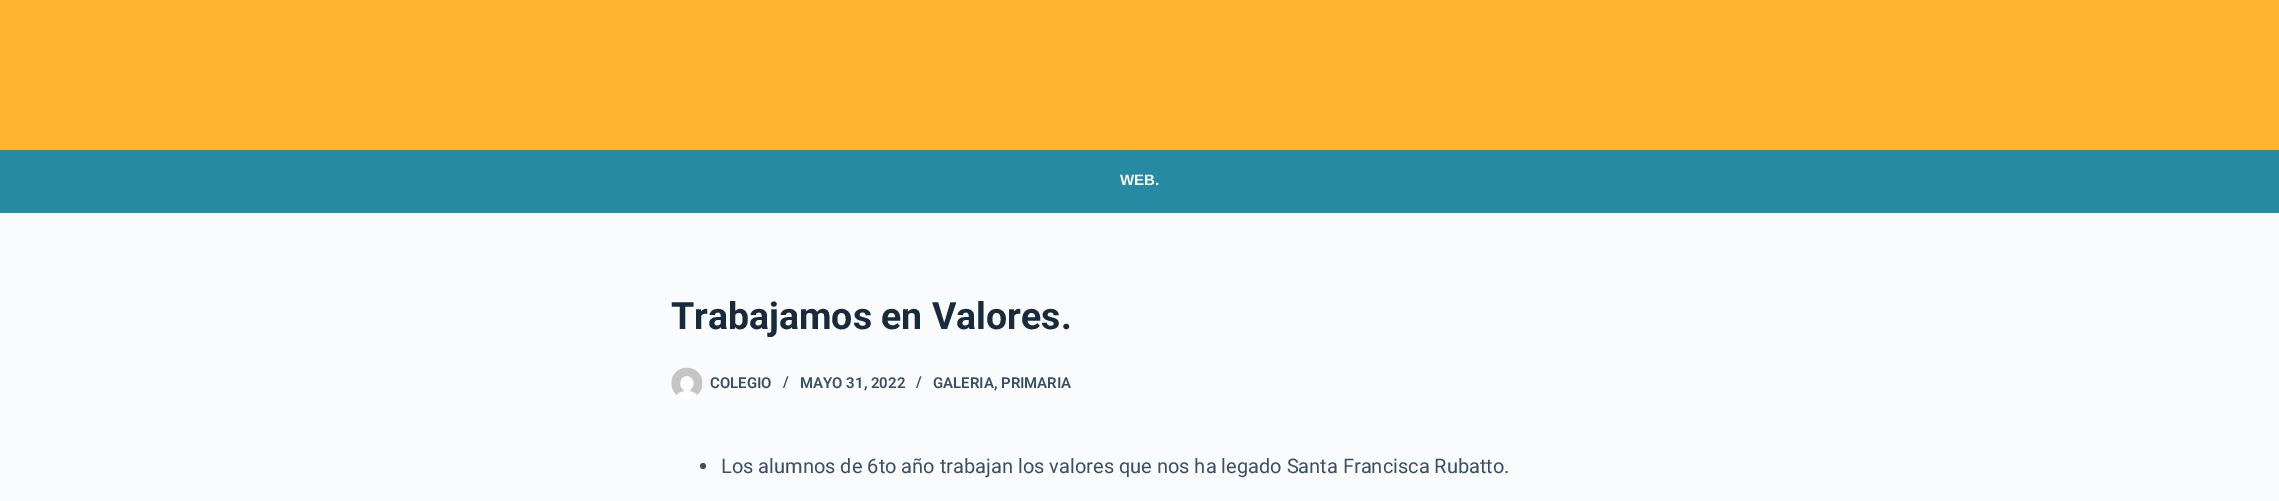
%!PS
<< /PageSize [2279 501] >> setpagedevice
/rgb { 3 { 255 div 3 1 roll } repeat setrgbcolor } def
/font { [ exch dup neg 0 0 3 -1 roll 0 0 ] selectfont } def
/circle { newpath 0 360 arc closepath } def
/picture { 5 dict begin { /h /w /y /x /name } { exch def } forall
  gsave x y translate w h scale
  w h 8 [w 0 0 h 0 0] name (r) file false 3 colorimage grestore end } def
0 501 translate 1 -1 scale
4 setmiterlimit
250 251 252 rgb
0 0 2279 501 rectfill
255 179 46 rgb
0 0 2279 150 rectfill
37 138 162 rgb
0 150 2279 63 rectfill
(img/1.rgb) 671 367 32 31 picture
58 79 102 rgb
703 466 3 circle fill
/LiberationSans-Bold 15 font
250 251 252 rgb
1120 185 moveto (WEB.) show
/Roboto-Bold 37.5 font
25 42 61 rgb
671 329 moveto (Trabajamos en Valores.) show
/Roboto-SemiBold 15 font
58 79 102 rgb
[
  [(COLEGIO) 710 388]
  [(/) 783 387]
  [(MAYO 31, 2022) 800 388]
  [(/) 916 387]
  [(GALERIA, PRIMARIA) 933 388]
] { aload pop moveto show } forall
/Roboto-Regular 20 font
721 473 moveto (Los alumnos de 6to año trabajan los valores que nos ha legado Santa Francisca Rubatto.) show
showpage
